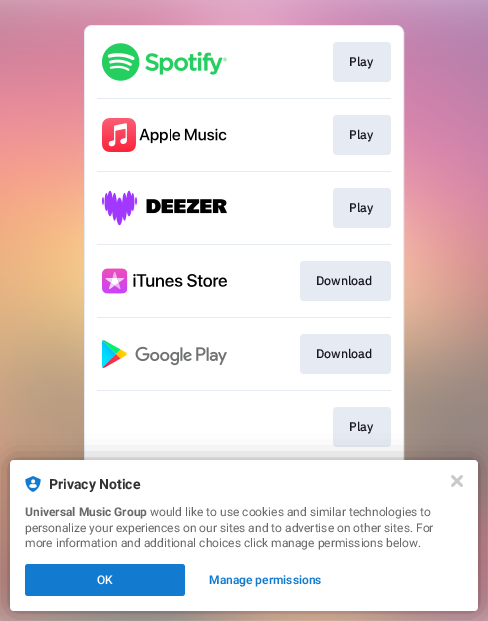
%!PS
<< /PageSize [488 621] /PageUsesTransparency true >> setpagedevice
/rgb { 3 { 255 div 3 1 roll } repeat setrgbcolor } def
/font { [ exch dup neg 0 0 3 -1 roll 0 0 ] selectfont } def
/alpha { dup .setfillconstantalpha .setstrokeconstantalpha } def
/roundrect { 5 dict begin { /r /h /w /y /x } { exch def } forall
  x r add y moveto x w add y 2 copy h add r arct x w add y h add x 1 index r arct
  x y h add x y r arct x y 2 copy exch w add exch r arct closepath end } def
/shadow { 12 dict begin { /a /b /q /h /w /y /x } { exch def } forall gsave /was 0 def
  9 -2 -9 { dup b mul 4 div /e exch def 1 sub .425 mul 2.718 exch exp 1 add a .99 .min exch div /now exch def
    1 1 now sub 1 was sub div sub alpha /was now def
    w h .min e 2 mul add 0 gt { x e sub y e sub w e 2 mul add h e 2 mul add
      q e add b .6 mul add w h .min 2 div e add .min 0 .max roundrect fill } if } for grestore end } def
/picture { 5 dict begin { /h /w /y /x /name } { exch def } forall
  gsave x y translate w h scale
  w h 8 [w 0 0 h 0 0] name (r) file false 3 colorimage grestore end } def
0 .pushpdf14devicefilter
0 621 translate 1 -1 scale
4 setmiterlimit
255 255 255 rgb
0 0 488 621 rectfill
(img/1.rgb) 0 0 488 621 picture
230 234 242 rgb
84.5 25.5 319 511 7.5 roundrect stroke
255 255 255 rgb
85 26 318 510 7 roundrect fill
(img/2.rgb) 102 43 125 38 picture
230 234 242 rgb
333 42 58 40 4 roundrect fill
97 98 294 1 rectfill
(img/3.rgb) 102 118 125 34 picture
333 115 58 40 4 roundrect fill
97 171 294 1 rectfill
(img/4.rgb) 102 190 125 36 picture
333 188 58 40 4 roundrect fill
97 244 294 1 rectfill
(img/5.rgb) 102 268 125 26 picture
300 261 91 40 4 roundrect fill
97 317 294 1 rectfill
(img/6.rgb) 102 340 125 28 picture
300 334 91 40 4 roundrect fill
97 390 294 1 rectfill
333 407 58 40 4 roundrect fill
0 0 0 rgb
10 460 468 151 4 2 0.12 shadow
10 460 468 151 4 12 0.3 shadow
255 255 255 rgb
10 460 468 151 4 roundrect fill
(img/7.rgb) 25 476 16 16 picture
19 123 207 rgb
25 564 160 32 3 roundrect fill
(img/8.rgb) 451 475 12 12 picture
/IBMPlexSans-Bold 12 font
24 23 33 rgb
349 66 moveto 0.25 0 (Play) ashow
349 139 moveto 0.25 0 (Play) ashow
349 212 moveto 0.25 0 (Play) ashow
316 285 moveto 0.25 0 (Download) ashow
316 358 moveto 0.25 0 (Download) ashow
349 431 moveto 0.25 0 (Play) ashow
/Roboto-Bold 14 font
50 50 50 rgb
49 489 moveto (Privacy Notice) show
/Roboto-Bold 12 font
104 104 104 rgb
25 516 moveto (Universal Music Group) show
/Roboto-Regular 12 font
[
  [(would like to use cookies and similar technologies to) 150 516]
  [(personalize your experiences on our sites and to advertise on other sites. For) 25 532]
  [(more information and additional choices click manage permissions below.) 25 547]
] { aload pop moveto show } forall
/Roboto-Medium 12 font
255 255 255 rgb
97 584 moveto (OK) show
/Roboto-SemiBold 12 font
19 123 207 rgb
209 584 moveto (Manage permissions) show
.poppdf14devicefilter showpage
